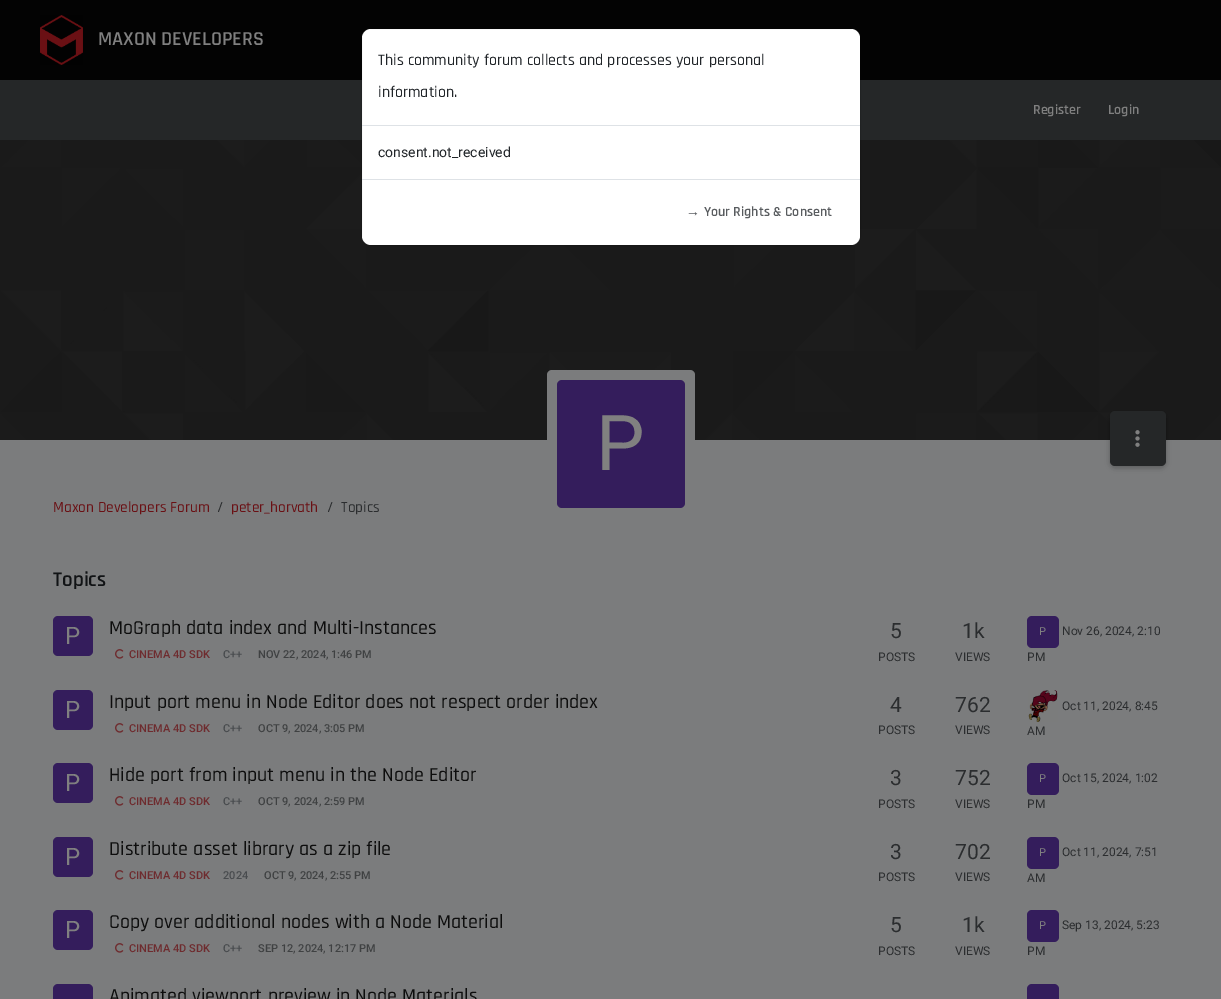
%!PS
<< /PageSize [1221 999] /PageUsesTransparency true >> setpagedevice
/rgb { 3 { 255 div 3 1 roll } repeat setrgbcolor } def
/font { [ exch dup neg 0 0 3 -1 roll 0 0 ] selectfont } def
/alpha { dup .setfillconstantalpha .setstrokeconstantalpha } def
/roundrect { 5 dict begin { /r /h /w /y /x } { exch def } forall
  x r add y moveto x w add y 2 copy h add r arct x w add y h add x 1 index r arct
  x y h add x y r arct x y 2 copy exch w add exch r arct closepath end } def
/shadow { 12 dict begin { /a /b /q /h /w /y /x } { exch def } forall gsave /was 0 def
  9 -2 -9 { dup b mul 4 div /e exch def 1 sub .425 mul 2.718 exch exp 1 add a .99 .min exch div /now exch def
    1 1 now sub 1 was sub div sub alpha /was now def
    w h .min e 2 mul add 0 gt { x e sub y e sub w e 2 mul add h e 2 mul add
      q e add b .6 mul add w h .min 2 div e add .min 0 .max roundrect fill } if } for grestore end } def
/picture { 5 dict begin { /h /w /y /x /name } { exch def } forall
  gsave x y translate w h scale
  w h 8 [w 0 0 h 0 0] name (r) file false 3 colorimage grestore end } def
0 .pushpdf14devicefilter
0 999 translate 1 -1 scale
4 setmiterlimit
123 124 125 rgb
0 0 1221 999 rectfill
3 3 3 rgb
0 0 1221 80 rectfill
(img/1.rgb) 40 15 43 50 picture
37 39 40 rgb
0 80 1221 60 rectfill
(img/2.rgb) 0 140 1221 300 picture
123 124 125 rgb
547 370 148 148 5 roundrect fill
52 29 92 rgb
557 380 128 128 5 roundrect fill
0 0 0 rgb
1110 413 56 55 5 5 0.12 shadow
1110 413 56 55 5 2.5 0.16 shadow
37 39 40 rgb
1110 411 56 55 5 roundrect fill
(img/3.rgb) 1135 430 5 17 picture
52 29 92 rgb
53 616 40 40 5 roundrect fill
(img/4.rgb) 115 649 9 10 picture
1027 616 32 32 5 roundrect fill
53 690 40 40 5 roundrect fill
(img/4.rgb) 115 723 9 10 picture
(img/5.rgb) 1028 690 30 32 picture
53 763 40 40 5 roundrect fill
(img/4.rgb) 115 796 9 10 picture
1027 763 32 32 5 roundrect fill
53 837 40 40 5 roundrect fill
(img/4.rgb) 115 870 9 10 picture
1027 837 32 32 5 roundrect fill
53 910 40 40 5 roundrect fill
(img/4.rgb) 115 943 9 10 picture
1027 910 32 32 5 roundrect fill
53 984 40 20 5 roundrect fill
1027 984 32 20 5 roundrect fill
255 255 255 rgb
362 29 498 216 9 roundrect fill
0.1 alpha
0 0 0 rgb
361.5 28.5 499 217 9.5 roundrect stroke
1 alpha
222 226 230 rgb
362 125 498 1 rectfill
362 179 498 1 rectfill
/Rajdhani-SemiBold 20 font
128 128 128 rgb
98 45 moveto (MAXON DEVELOPERS) show
/Rajdhani-SemiBold 14 font
1033 114 moveto (Register) show
1108 114 moveto (Login) show
/Roboto-Regular 77 font
596 470 moveto (P) show
/Rajdhani-Medium 15.4 font
106 16 20 rgb
53 512 moveto (Maxon Developers Forum) show
43 45 47 rgb
217 512 moveto (/) show
106 16 20 rgb
231 512 moveto (peter_horvath) show
43 45 47 rgb
327 512 moveto (/) show
341 512 moveto (Topics) show
/Rajdhani-SemiBold 21 font
17 19 21 rgb
53 586 moveto (Topics) show
/Roboto-Regular 24 font
128 128 128 rgb
65 644 moveto (P) show
/Rajdhani-Medium 20 font
13 13 13 rgb
109 634 moveto (MoGraph data index and Multi-Instances) show
/Roboto-Medium 11 font
110 43 46 rgb
129 658 moveto (CINEMA 4D SDK) show
72 75 78 rgb
223 658 moveto (C++) show
63 65 66 rgb
258 658 moveto (NOV 22, 2024, 1:46 PM) show
/Roboto-Regular 21 font
43 45 47 rgb
890 638 moveto (5) show
/Roboto-Regular 12 font
878 661 moveto (POSTS) show
/Roboto-Regular 21 font
962 638 moveto (1k) show
/Roboto-Regular 12 font
955 661 moveto (VIEWS) show
/Roboto-Regular 11 font
128 128 128 rgb
1039 635 moveto (P) show
/Roboto-Regular 12 font
43 45 47 rgb
1062 635 moveto (Nov 26, 2024, 2:10) show
1027 661 moveto (PM) show
/Roboto-Regular 24 font
128 128 128 rgb
65 718 moveto (P) show
/Rajdhani-Medium 20 font
13 13 13 rgb
109 708 moveto (Input port menu in Node Editor does not respect order index) show
/Roboto-Medium 11 font
110 43 46 rgb
129 732 moveto (CINEMA 4D SDK) show
72 75 78 rgb
223 732 moveto (C++) show
63 65 66 rgb
258 732 moveto (OCT 9, 2024, 3:05 PM) show
/Roboto-Regular 21 font
43 45 47 rgb
890 712 moveto (4) show
/Roboto-Regular 12 font
878 734 moveto (POSTS) show
/Roboto-Regular 21 font
955 712 moveto (762) show
/Roboto-Regular 12 font
[
  [(VIEWS) 955 734]
  [(Oct 11, 2024, 8:45) 1062 710]
  [(AM) 1027 735]
] { aload pop moveto show } forall
/Roboto-Regular 24 font
128 128 128 rgb
65 791 moveto (P) show
/Rajdhani-Medium 20 font
13 13 13 rgb
109 781 moveto (Hide port from input menu in the Node Editor) show
/Roboto-Medium 11 font
110 43 46 rgb
129 805 moveto (CINEMA 4D SDK) show
72 75 78 rgb
223 805 moveto (C++) show
63 65 66 rgb
258 805 moveto (OCT 9, 2024, 2:59 PM) show
/Roboto-Regular 21 font
43 45 47 rgb
890 785 moveto (3) show
/Roboto-Regular 12 font
878 808 moveto (POSTS) show
/Roboto-Regular 21 font
955 785 moveto (752) show
/Roboto-Regular 12 font
955 808 moveto (VIEWS) show
/Roboto-Regular 11 font
128 128 128 rgb
1039 782 moveto (P) show
/Roboto-Regular 12 font
43 45 47 rgb
1062 782 moveto (Oct 15, 2024, 1:02) show
1027 808 moveto (PM) show
/Roboto-Regular 24 font
128 128 128 rgb
65 865 moveto (P) show
/Rajdhani-Medium 20 font
13 13 13 rgb
109 855 moveto (Distribute asset library as a zip file) show
/Roboto-Medium 11 font
110 43 46 rgb
129 879 moveto (CINEMA 4D SDK) show
72 75 78 rgb
223 879 moveto (2024) show
63 65 66 rgb
264 879 moveto (OCT 9, 2024, 2:55 PM) show
/Roboto-Regular 21 font
43 45 47 rgb
890 859 moveto (3) show
/Roboto-Regular 12 font
878 881 moveto (POSTS) show
/Roboto-Regular 21 font
955 859 moveto (702) show
/Roboto-Regular 12 font
955 881 moveto (VIEWS) show
/Roboto-Regular 11 font
128 128 128 rgb
1039 856 moveto (P) show
/Roboto-Regular 12 font
43 45 47 rgb
1062 856 moveto (Oct 11, 2024, 7:51) show
1027 882 moveto (AM) show
/Roboto-Regular 24 font
128 128 128 rgb
65 938 moveto (P) show
/Rajdhani-Medium 20 font
13 13 13 rgb
109 928 moveto (Copy over additional nodes with a Node Material) show
/Roboto-Medium 11 font
110 43 46 rgb
129 952 moveto (CINEMA 4D SDK) show
72 75 78 rgb
223 952 moveto (C++) show
63 65 66 rgb
258 952 moveto (SEP 12, 2024, 12:17 PM) show
/Roboto-Regular 21 font
43 45 47 rgb
890 932 moveto (5) show
/Roboto-Regular 12 font
878 955 moveto (POSTS) show
/Roboto-Regular 21 font
962 932 moveto (1k) show
/Roboto-Regular 12 font
955 955 moveto (VIEWS) show
/Roboto-Regular 11 font
128 128 128 rgb
1039 929 moveto (P) show
/Roboto-Regular 12 font
43 45 47 rgb
1062 929 moveto (Sep 13, 2024, 5:23) show
1027 955 moveto (PM) show
/Rajdhani-Medium 20 font
13 13 13 rgb
109 1002 moveto (Animated viewport preview in Node Materials) show
/Rajdhani-Medium 16 font
33 37 41 rgb
378 65 moveto (This community forum collects and processes your personal) show
378 97 moveto (information.) show
/Roboto-Regular 14 font
378 157 moveto (consent.not_received) show
/LiberationSans-Bold 14 font
89 92 95 rgb
686 216 moveto (→) show
/Rajdhani-SemiBold 14 font
704 216 moveto (Your Rights & Consent) show
.poppdf14devicefilter showpage
